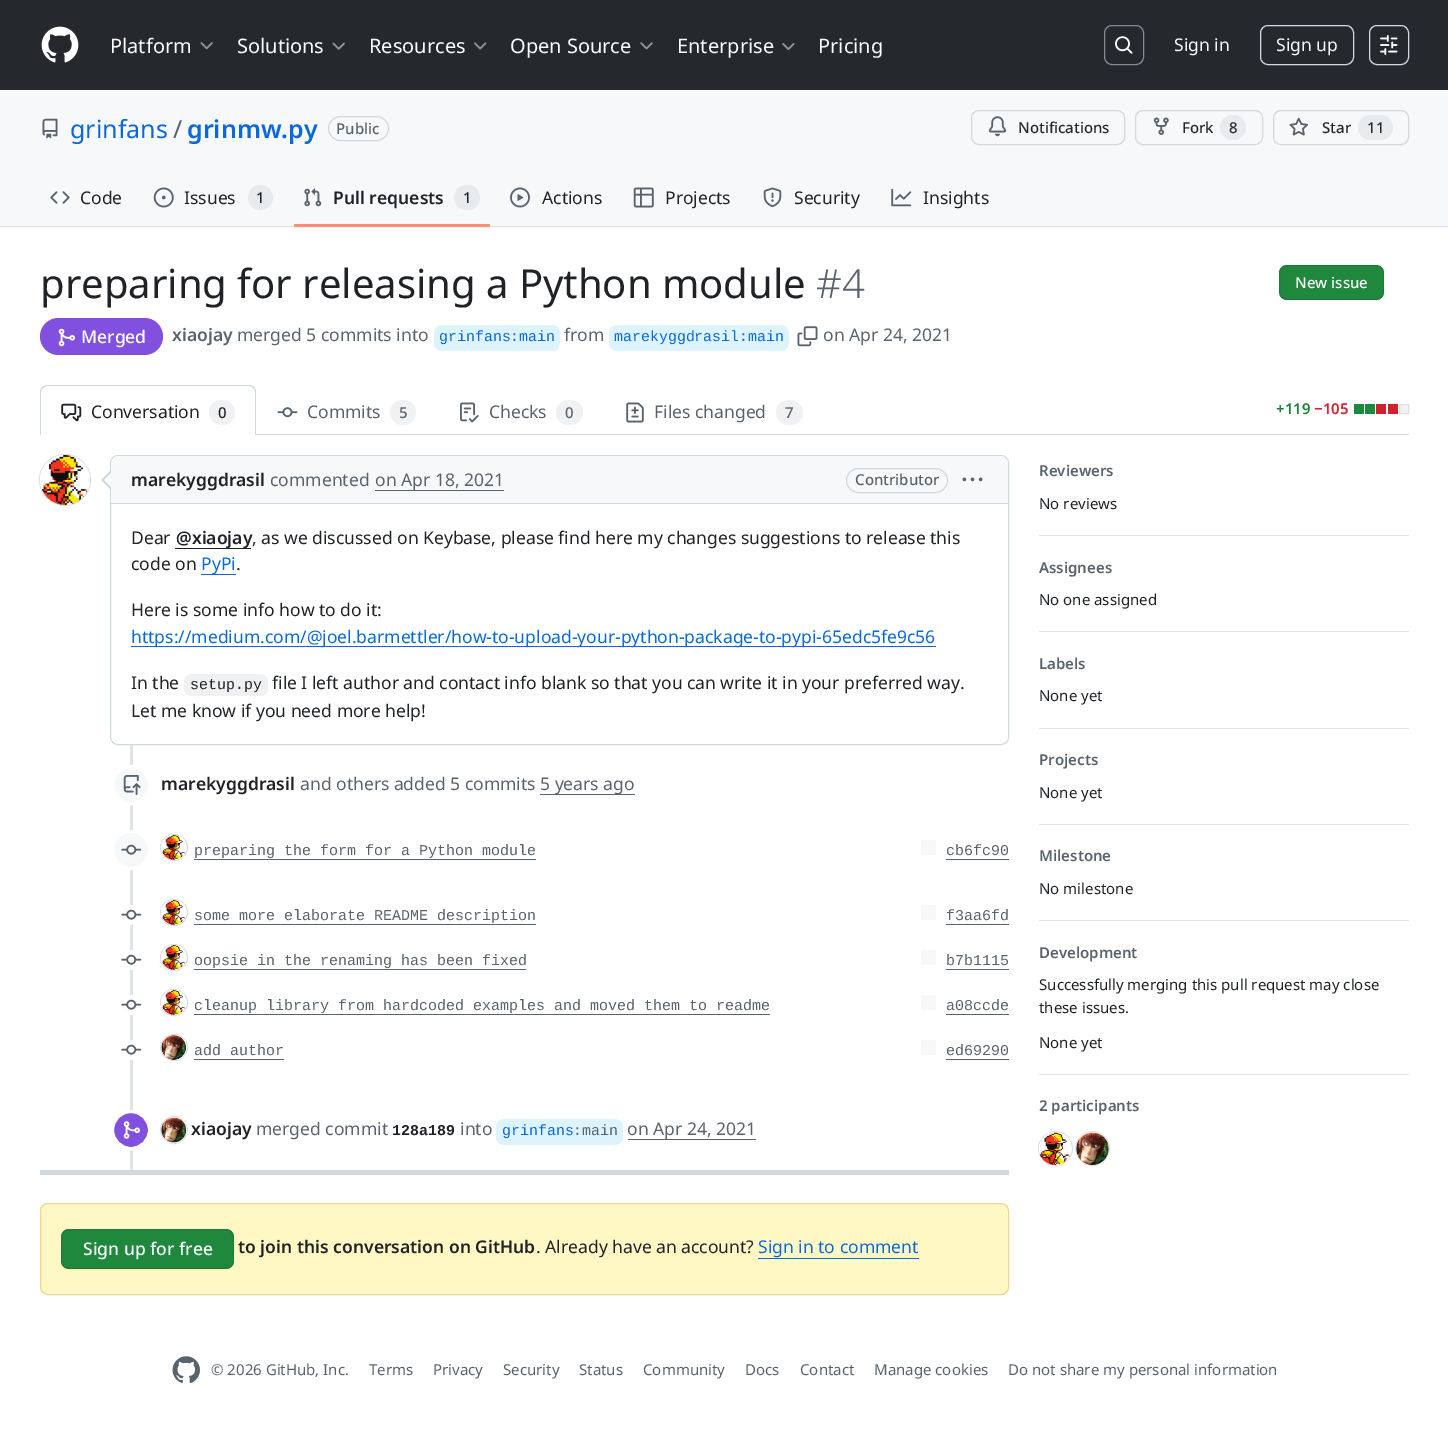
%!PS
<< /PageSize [1448 1448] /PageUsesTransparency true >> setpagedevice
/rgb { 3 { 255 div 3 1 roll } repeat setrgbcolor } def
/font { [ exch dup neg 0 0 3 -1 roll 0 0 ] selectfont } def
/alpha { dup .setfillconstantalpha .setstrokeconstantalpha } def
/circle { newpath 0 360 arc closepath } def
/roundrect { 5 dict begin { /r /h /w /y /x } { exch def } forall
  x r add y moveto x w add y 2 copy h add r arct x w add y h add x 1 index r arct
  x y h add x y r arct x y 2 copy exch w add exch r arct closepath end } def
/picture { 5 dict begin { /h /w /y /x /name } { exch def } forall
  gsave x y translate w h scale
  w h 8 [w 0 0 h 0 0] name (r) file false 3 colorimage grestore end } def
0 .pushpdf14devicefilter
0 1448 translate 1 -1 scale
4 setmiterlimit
255 255 255 rgb
0 0 1448 1448 rectfill
37 41 46 rgb
0 0 1448 90 rectfill
(img/1.rgb) 41 26 38 37 picture
(img/2.rgb) 200 42 13 8 picture
(img/3.rgb) 332 42 13 8 picture
(img/4.rgb) 474 42 13 8 picture
(img/5.rgb) 640 42 13 8 picture
(img/6.rgb) 782 43 13 7 picture
129 139 152 rgb
1104.5 25.5 39 39 7.5 roundrect stroke
(img/7.rgb) 1115 36 18 18 picture
209 217 224 rgb
1260.5 25.5 93 39 7.5 roundrect stroke
1369.5 25.5 39 39 7.5 roundrect stroke
(img/8.rgb) 1380 35 18 20 picture
246 248 250 rgb
0 90 1448 138 rectfill
(img/9.rgb) 42 118 16 21 picture
209 217 224 rgb
328.5 116.5 60 24 12 roundrect stroke
971.5 110.5 153 34 7.5 roundrect stroke
(img/10.rgb) 988 116 19 21 picture
1135.5 110.5 127 34 7.5 roundrect stroke
(img/11.rgb) 1153 117 16 18 picture
232 235 238 rgb
1220 115 26 25 12.5 roundrect fill
209 217 224 rgb
1273.5 110.5 135 34 7.5 roundrect stroke
(img/12.rgb) 1289 117 19 19 picture
232 235 238 rgb
1358 115 35 25 12.5 roundrect fill
220 226 232 rgb
0 226 1448 1 rectfill
(img/13.rgb) 50 191 20 13 picture
(img/14.rgb) 153 187 21 21 picture
232 235 238 rgb
260.5 197.5 12.5 circle fill
(img/15.rgb) 304 188 18 19 picture
454 185 26 25 12.5 roundrect fill
253 140 115 rgb
294 224 196 3 1.5 roundrect fill
(img/16.rgb) 510 187 20 21 picture
(img/17.rgb) 633 187 21 21 picture
(img/18.rgb) 763 187 19 21 picture
(img/19.rgb) 891 188 21 19 picture
31 136 61 rgb
1279 265 105 35 8 roundrect fill
0.15 alpha
31 35 40 rgb
1279.5 265.5 104 34 7.5 roundrect stroke
1 alpha
130 80 223 rgb
40 318 123 37 18.5 roundrect fill
(img/20.rgb) 58 328 17 19 picture
221 244 255 rgb
434 325 126 26 8 roundrect fill
609 325 180 26 8 roundrect fill
(img/21.rgb) 797 326 21 21 picture
209 217 224 rgb
256 434 1153 1 rectfill
48 385 moveto 249 385 lineto 253 385 256 388 256 392 curveto 256 435 lineto 40 435 lineto 40 392 lineto 40 388 43 385 48 385 curveto closepath 48 386 moveto 249 386 lineto 252 386 255 389 255 392 curveto 255 435 lineto 41 435 lineto 41 392 lineto 41 389 44 386 48 386 curveto closepath eofill
(img/22.rgb) 61 403 21 19 picture
240 241 243 rgb
209 400 26 25 12.5 roundrect fill
(img/23.rgb) 277 407 21 11 picture
390 400 26 25 12.5 roundrect fill
(img/24.rgb) 460 402 19 21 picture
556 400 27 25 12.5 roundrect fill
(img/25.rgb) 626 402 18 21 picture
776 400 27 25 12.5 roundrect fill
[
  [1354 404 10 10 31 136 61]
  [1365 404 10 10 31 136 61]
  [1376 404 10 10 207 34 46]
  [1388 404 10 10 207 34 46]
] { aload pop rgb rectfill } forall
240 241 243 rgb
1399.5 404.5 moveto 1408.5 404.5 lineto 1408.5 413.5 lineto 1399.5 413.5 lineto closepath gsave fill grestore
218 224 230 rgb
stroke
221 222 223 rgb
65 480 25.5 circle stroke
255 255 255 rgb
65 480 25 circle fill
(img/26.rgb) 42 455 46 50 picture
209 217 224 rgb
110.5 455.5 898 289 7.5 roundrect stroke
101 480 moveto 111 470 lineto 111 490 lineto closepath fill
246 248 250 rgb
119 456 moveto 1000 456 lineto 1004.5 456 1008 459.5 1008 464 curveto 1008 504 lineto 111 504 lineto 111 464 lineto 111 459.5 114.5 456 119 456 curveto closepath fill
104 480 moveto 114 470 lineto 114 490 lineto closepath fill
209 217 224 rgb
111 503 897 1 rectfill
89 99 110 rgb
375 490 129 1 rectfill
209 217 224 rgb
846.5 468.5 101 24 12 roundrect stroke
(img/27.rgb) 962 477 21 5 picture
[
  [175 548 76 1 31 35 40]
  [201 574 35 1 9 105 218]
  [131 646 805 1 9 105 218]
] { aload pop rgb rectfill } forall
240 241 243 rgb
184 674 84 22 8 roundrect fill
223 228 233 rgb
130 745 3 425 rectfill
246 248 250 rgb
131 785 18.5 circle gsave fill grestore
255 255 255 rgb
3 setlinewidth
stroke
(img/28.rgb) 123 775 18 20 picture
89 99 110 rgb
540 794 95 1 rectfill
246 248 250 rgb
131 850 18.5 circle gsave fill grestore
255 255 255 rgb
stroke
(img/29.rgb) 121 844 21 11 picture
221 222 223 rgb
1 setlinewidth
160.5 834.5 27 26 13 roundrect stroke
255 255 255 rgb
173.5 847.5 12.5 circle fill
(img/30.rgb) 162 835 23 25 picture
[
  [194 859 342 1 89 99 110]
  [921 840 15 15 246 248 250]
  [946 859 63 1 89 99 110]
] { aload pop rgb rectfill } forall
255 255 255 rgb
131 905 moveto 142 905 151 909.5 151 915 curveto 151 920.5 142 925 131 925 curveto 120 925 111 920.5 111 915 curveto 111 909.5 120 905 131 905 curveto closepath fill
(img/31.rgb) 121 909 21 11 picture
221 222 223 rgb
160.5 899.5 27 26 13 roundrect stroke
255 255 255 rgb
173.5 912.5 12.5 circle fill
(img/30.rgb) 162 900 23 25 picture
[
  [194 924 342 1 89 99 110]
  [921 905 15 15 246 248 250]
  [946 924 63 1 89 99 110]
] { aload pop rgb rectfill } forall
255 255 255 rgb
131 950 moveto 142 950 151 954.5 151 960 curveto 151 965.5 142 970 131 970 curveto 120 970 111 965.5 111 960 curveto 111 954.5 120 950 131 950 curveto closepath fill
(img/31.rgb) 121 954 21 11 picture
221 222 223 rgb
160.5 944.5 27 26 13 roundrect stroke
255 255 255 rgb
173.5 957.5 12.5 circle fill
(img/30.rgb) 162 945 23 25 picture
[
  [194 969 332 1 89 99 110]
  [921 950 15 15 246 248 250]
  [946 969 63 1 89 99 110]
] { aload pop rgb rectfill } forall
255 255 255 rgb
131 995 moveto 142 995 151 999.5 151 1005 curveto 151 1010.5 142 1015 131 1015 curveto 120 1015 111 1010.5 111 1005 curveto 111 999.5 120 995 131 995 curveto closepath fill
(img/31.rgb) 121 999 21 11 picture
221 222 223 rgb
160.5 989.5 27 26 13 roundrect stroke
255 255 255 rgb
173.5 1002.5 12.5 circle fill
(img/30.rgb) 162 990 23 25 picture
[
  [194 1014 576 1 89 99 110]
  [921 995 15 15 246 248 250]
  [946 1014 63 1 89 99 110]
] { aload pop rgb rectfill } forall
255 255 255 rgb
131 1040 moveto 142 1040 151 1044.5 151 1050 curveto 151 1055.5 142 1060 131 1060 curveto 120 1060 111 1055.5 111 1050 curveto 111 1044.5 120 1040 131 1040 curveto closepath fill
(img/31.rgb) 121 1044 21 11 picture
221 222 223 rgb
160.5 1034.5 27 26 13 roundrect stroke
255 255 255 rgb
173.5 1047.5 12.5 circle fill
(img/32.rgb) 161 1035 25 25 picture
[
  [194 1059 90 1 89 99 110]
  [921 1040 15 15 246 248 250]
  [946 1059 63 1 89 99 110]
] { aload pop rgb rectfill } forall
130 80 223 rgb
131 1130 18.5 circle gsave fill grestore
255 255 255 rgb
3 setlinewidth
stroke
(img/33.rgb) 123 1121 17 18 picture
221 222 223 rgb
1 setlinewidth
174 1130 13.5 circle stroke
255 255 255 rgb
173.5 1130.5 12.5 circle fill
(img/34.rgb) 161 1117 26 26 picture
221 244 255 rgb
496 1119 127 26 8 roundrect fill
89 99 110 rgb
628 1139 128 1 rectfill
209 217 224 rgb
40 1170 969 5 rectfill
255 248 197 rgb
40 1203 969 92 8 roundrect fill
0.4 alpha
212 167 44 rgb
40.5 1203.5 968 91 7.5 roundrect stroke
1 alpha
31 136 61 rgb
61 1229 173 40 8 roundrect fill
0.15 alpha
31 35 40 rgb
61.5 1229.5 172 39 7.5 roundrect stroke
1 alpha
[
  [758 1258 161 1 9 105 218]
  [1039 535 370 1 223 228 233]
  [1039 631 370 1 223 228 233]
  [1039 728 370 1 223 228 233]
  [1039 824 370 1 223 228 233]
  [1039 920 370 1 223 228 233]
  [1039 1074 370 1 223 228 233]
] { aload pop rgb rectfill } forall
221 222 223 rgb
1055.5 1148.5 17 circle stroke
255 255 255 rgb
1055 1149 16 circle fill
(img/35.rgb) 1040 1132 30 33 picture
221 222 223 rgb
1092.5 1148.5 17 circle stroke
255 255 255 rgb
1076 1133 33 32 16 roundrect fill
(img/36.rgb) 1076 1132 33 33 picture
(img/37.rgb) 172 1356 28 28 picture
/NotoSans-Regular 20 font
[
  [(Platform) 110 53]
  [(Solutions) 237 53]
  [(Resources) 369 53]
  [(Open Source) 510 53]
  [(Enterprise) 677 53]
  [(Pricing) 818 53]
] { aload pop moveto show } forall
/NotoSans-Regular 17.5 font
1174 51 moveto (Sign in) show
1276 51 moveto (Sign up) show
/NotoSans-Regular 25 font
9 105 218 rgb
70 138 moveto (grinfans) show
89 99 110 rgb
173 138 moveto (/) show
/NotoSans-SemiBold 25 font
9 105 218 rgb
187 138 moveto (grinmw.py) show
/NotoSans-Medium 15 font
89 99 110 rgb
336 134 moveto (Public) show
37 41 46 rgb
[
  [(Notifications) 1018 133]
  [(Fork) 1182 133]
  [(8) 1229 133]
  [(Star) 1322 133]
  [(11) 1367 133]
] { aload pop moveto show } forall
/NotoSans-Regular 17.5 font
31 35 40 rgb
80 204 moveto (Code) show
184 204 moveto (Issues) show
/NotoSans-Medium 15 font
256 203 moveto (1) show
/NotoSans-SemiBold 17.5 font
333 204 moveto (Pull requests) show
/NotoSans-Medium 15 font
463 203 moveto (1) show
/NotoSans-Regular 17.5 font
[
  [(Actions) 542 204]
  [(Projects) 665 204]
  [(Security) 794 204]
  [(Insights) 923 204]
] { aload pop moveto show } forall
/NotoSans-Regular 40 font
40 298 moveto (preparing for releasing a Python module) show
/NotoSans-Light 40 font
89 99 110 rgb
816 298 moveto (#4) show
/NotoSans-Medium 15 font
255 255 255 rgb
1295 288 moveto (New issue) show
/NotoSans-Medium 17.5 font
81 343 moveto (Merged) show
/NotoSans-SemiBold 17.5 font
89 99 110 rgb
172 341 moveto (xiaojay) show
/NotoSans-Regular 17.5 font
237 341 moveto (merged 5 commits into) show
/LiberationMono-Regular 14.9 font
9 105 218 rgb
510 341 moveto (:) show
439 341 moveto (grinfans main) show
/NotoSans-Regular 17.5 font
89 99 110 rgb
564 341 moveto (from) show
/LiberationMono-Regular 14.9 font
9 105 218 rgb
739 341 moveto (:) show
614 341 moveto (marekyggdrasil main) show
/NotoSans-Regular 17.5 font
89 99 110 rgb
823 341 moveto (on Apr 24, 2021) show
31 35 40 rgb
91 418 moveto (Conversation) show
/NotoSans-Medium 15 font
218 418 moveto (0) show
/NotoSans-Regular 17.5 font
89 99 110 rgb
307 418 moveto (Commits) show
/NotoSans-Medium 15 font
399 418 moveto (5) show
/NotoSans-Regular 17.5 font
489 418 moveto (Checks) show
/NotoSans-Medium 15 font
565 418 moveto (0) show
/NotoSans-Regular 17.5 font
654 418 moveto (Files changed) show
/NotoSans-Medium 15 font
785 418 moveto (7) show
/NotoSans-SemiBold 15 font
26 127 55 rgb
1276 414 moveto (+119) show
209 36 47 rgb
1314 414 moveto (−105) show
/NotoSans-SemiBold 17.5 font
31 35 40 rgb
131 486 moveto (marekyggdrasil) show
/NotoSans-Regular 17.5 font
89 99 110 rgb
270 486 moveto (commented) show
375 486 moveto (on Apr 18, 2021) show
/NotoSans-Medium 15 font
855 485 moveto (Contributor) show
/NotoSans-Regular 17.5 font
31 35 40 rgb
131 544 moveto (Dear) show
/NotoSans-SemiBold 17.5 font
176 544 moveto (@xiaojay) show
/NotoSans-Regular 17.5 font
252 544 moveto (, as we discussed on Keybase, please find here my changes suggestions to release this) show
131 570 moveto (code on) show
9 105 218 rgb
201 570 moveto (PyPi) show
31 35 40 rgb
236 570 moveto (.) show
131 616 moveto (Here is some info how to do it:) show
9 105 218 rgb
131 643 moveto (https://medium.com/@joel.barmettler/how-to-upload-your-python-package-to-pypi-65edc5fe9c56) show
31 35 40 rgb
131 689 moveto (In the) show
/LiberationMono-Regular 14.9 font
190 689 moveto (setup.py) show
/NotoSans-Regular 17.5 font
272 689 moveto (file I left author and contact info blank so that you can write it in your preferred way.) show
131 717 moveto (Let me know if you need more help!) show
/NotoSans-SemiBold 17.5 font
161 790 moveto (marekyggdrasil) show
/NotoSans-Regular 17.5 font
89 99 110 rgb
300 790 moveto (and others added 5 commits) show
540 790 moveto (5 years ago) show
/LiberationMono-Regular 15 font
[
  [(preparing the form for a Python module) 194 855]
  [(cb6fc90) 946 855]
  [(some more elaborate README description) 194 920]
  [(f3aa6fd) 946 920]
  [(oopsie in the renaming has been fixed) 194 965]
  [(b7b1115) 946 965]
  [(cleanup library from hardcoded examples and moved them to readme) 194 1010]
  [(a08ccde) 946 1010]
  [(add author) 194 1055]
  [(ed69290) 946 1055]
] { aload pop moveto show } forall
/NotoSans-SemiBold 17.5 font
31 35 40 rgb
191 1135 moveto (xiaojay) show
/NotoSans-Regular 17.5 font
89 99 110 rgb
256 1135 moveto (merged commit) show
/LiberationMono-Bold 15 font
31 35 40 rgb
392 1135 moveto (128a189) show
/NotoSans-Regular 17.5 font
89 99 110 rgb
460 1135 moveto (into) show
/LiberationMono-Regular 14.9 font
9 105 218 rgb
502 1135 moveto (grinfans) show
89 99 110 rgb
573 1135 moveto (:main) show
/NotoSans-Regular 17.5 font
627 1135 moveto (on Apr 24, 2021) show
/NotoSans-Medium 17.5 font
255 255 255 rgb
83 1255 moveto (Sign up for free) show
/NotoSans-SemiBold 17.5 font
31 35 40 rgb
238 1253 moveto (to join this conversation on GitHub) show
/NotoSans-Regular 17.5 font
536 1253 moveto (. Already have an account?) show
9 105 218 rgb
758 1253 moveto (Sign in to comment) show
/NotoSans-SemiBold 15 font
89 99 110 rgb
1039 476 moveto (Reviewers) show
/NotoSans-Regular 15 font
31 35 40 rgb
1039 509 moveto (No reviews) show
/NotoSans-SemiBold 15 font
89 99 110 rgb
1039 573 moveto (Assignees) show
/NotoSans-Regular 15 font
31 35 40 rgb
1039 605 moveto (No one assigned) show
/NotoSans-SemiBold 15 font
89 99 110 rgb
1039 669 moveto (Labels) show
/NotoSans-Regular 15 font
31 35 40 rgb
1039 701 moveto (None yet) show
/NotoSans-SemiBold 15 font
89 99 110 rgb
1039 765 moveto (Projects) show
/NotoSans-Regular 15 font
31 35 40 rgb
1039 798 moveto (None yet) show
/NotoSans-SemiBold 15 font
89 99 110 rgb
1039 861 moveto (Milestone) show
/NotoSans-Regular 15 font
31 35 40 rgb
1039 894 moveto (No milestone) show
/NotoSans-SemiBold 15 font
89 99 110 rgb
1039 958 moveto (Development) show
/NotoSans-Regular 15 font
31 35 40 rgb
[
  [(Successfully merging this pull request may close) 1039 990]
  [(these issues.) 1039 1013]
  [(None yet) 1039 1048]
] { aload pop moveto show } forall
/NotoSans-SemiBold 15 font
89 99 110 rgb
1039 1111 moveto (2 participants) show
/NotoSans-Regular 15 font
[
  [(© 2026 GitHub, Inc.) 211 1375]
  [(Terms) 369 1375]
  [(Privacy) 433 1375]
  [(Security) 503 1375]
  [(Status) 579 1375]
  [(Community) 643 1375]
  [(Docs) 745 1375]
  [(Contact) 800 1375]
  [(Manage cookies) 874 1375]
  [(Do not share my personal information) 1008 1375]
] { aload pop moveto show } forall
.poppdf14devicefilter showpage
